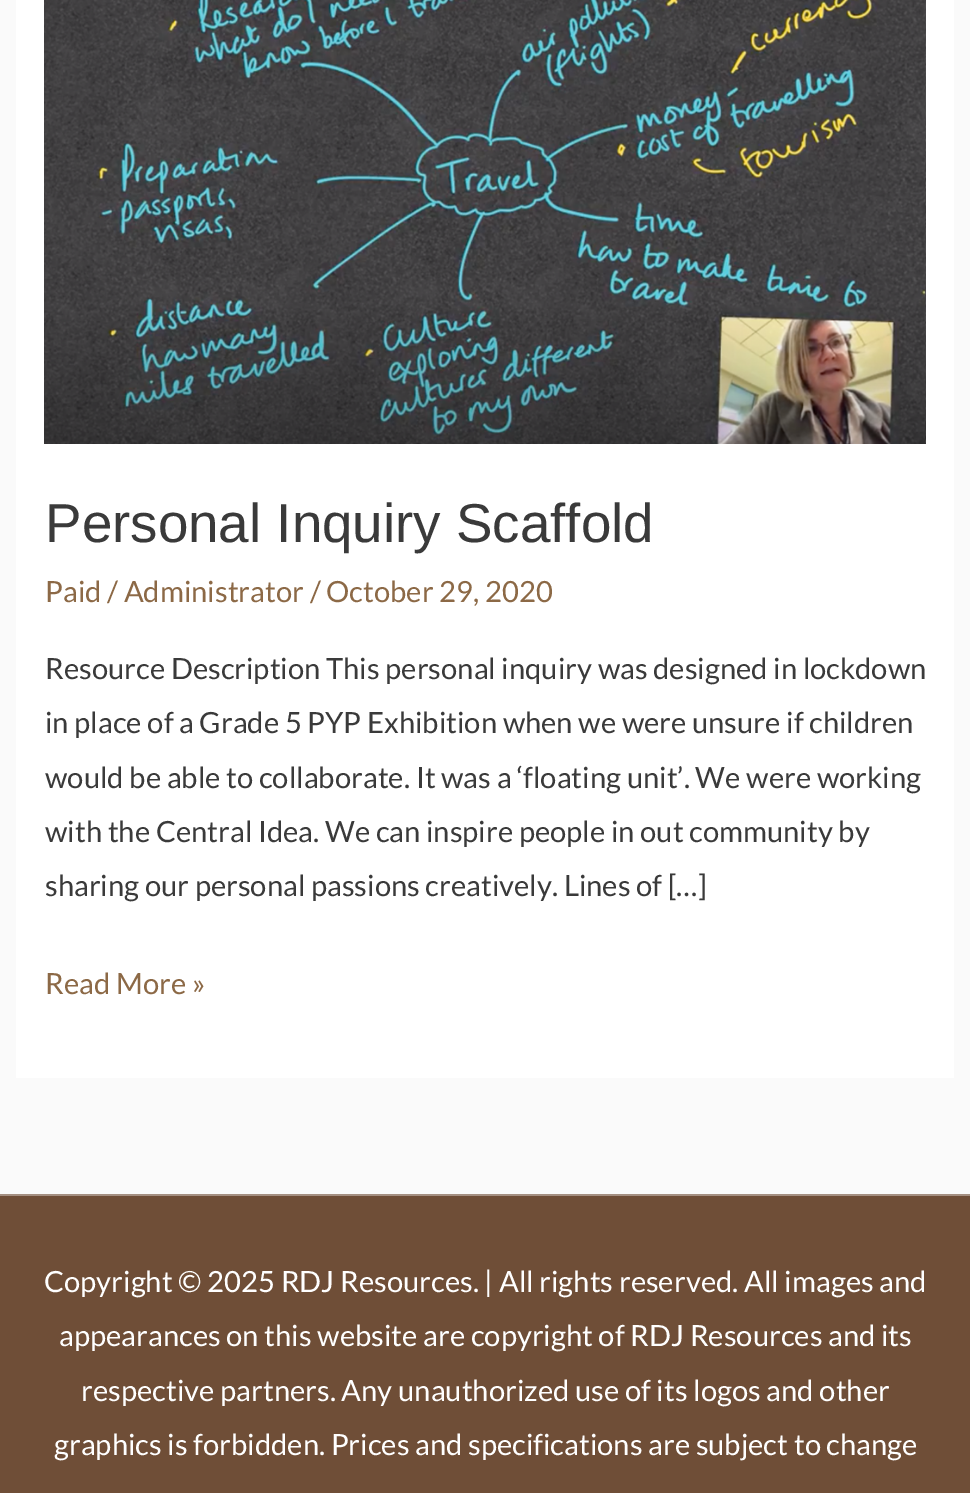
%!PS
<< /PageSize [970 1493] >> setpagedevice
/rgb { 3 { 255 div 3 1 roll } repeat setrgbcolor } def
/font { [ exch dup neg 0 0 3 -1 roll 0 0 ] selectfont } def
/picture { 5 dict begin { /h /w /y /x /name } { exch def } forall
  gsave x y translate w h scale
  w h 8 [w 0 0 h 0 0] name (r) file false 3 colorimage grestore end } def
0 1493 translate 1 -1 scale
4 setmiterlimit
250 250 250 rgb
0 0 970 1493 rectfill
255 255 255 rgb
16 0 938 1078 rectfill
(img/1.rgb) 44 0 882 444 picture
164 143 129 rgb
0 1194 970 2 rectfill
111 78 55 rgb
0 1196 970 297 rectfill
/LiberationSans-Regular 54.75 font
58 58 58 rgb
45 542 moveto (Personal Inquiry Scaffold) show
/Lato-Regular 29.2 font
140 105 70 rgb
45 602 moveto (Paid / Administrator / October 29, 2020) show
58 58 58 rgb
[
  [(Resource Description This personal inquiry was designed in lockdown) 45 679]
  [(in place of a Grade 5 PYP Exhibition when we were unsure if children) 45 733]
  [(would be able to collaborate. It was a ‘floating unit’. We were working) 45 788]
  [(with the Central Idea. We can inspire people in out community by) 45 842]
  [(sharing our personal passions creatively. Lines of […]) 45 896]
] { aload pop moveto show } forall
140 105 70 rgb
45 994 moveto (Read More ») show
255 255 255 rgb
[
  [(Copyright © 2025 RDJ Resources. | All rights reserved. All images and) 44 1292]
  [(appearances on this website are copyright of RDJ Resources and its) 59 1346]
  [(respective partners. Any unauthorized use of its logos and other) 81 1401]
  [(graphics is forbidden. Prices and specifications are subject to change) 54 1455]
] { aload pop moveto show } forall
showpage
